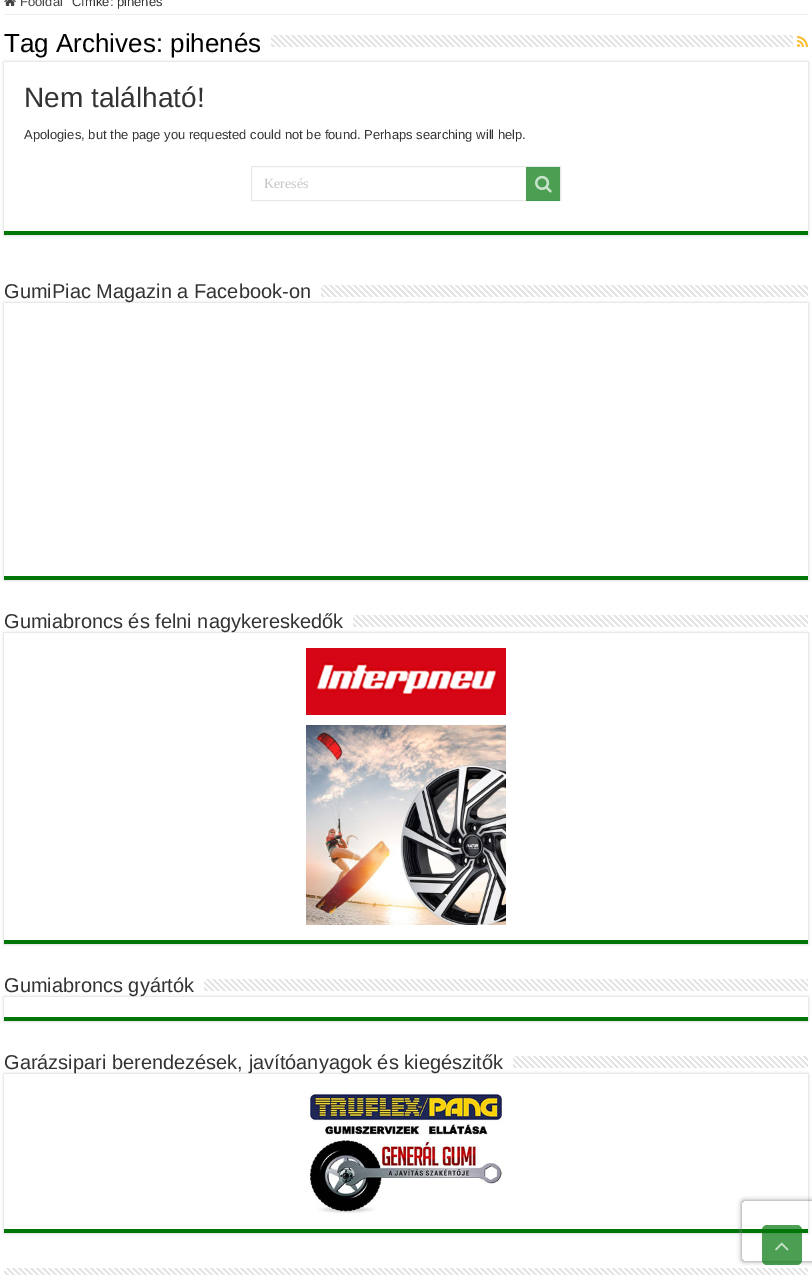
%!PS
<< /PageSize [812 1275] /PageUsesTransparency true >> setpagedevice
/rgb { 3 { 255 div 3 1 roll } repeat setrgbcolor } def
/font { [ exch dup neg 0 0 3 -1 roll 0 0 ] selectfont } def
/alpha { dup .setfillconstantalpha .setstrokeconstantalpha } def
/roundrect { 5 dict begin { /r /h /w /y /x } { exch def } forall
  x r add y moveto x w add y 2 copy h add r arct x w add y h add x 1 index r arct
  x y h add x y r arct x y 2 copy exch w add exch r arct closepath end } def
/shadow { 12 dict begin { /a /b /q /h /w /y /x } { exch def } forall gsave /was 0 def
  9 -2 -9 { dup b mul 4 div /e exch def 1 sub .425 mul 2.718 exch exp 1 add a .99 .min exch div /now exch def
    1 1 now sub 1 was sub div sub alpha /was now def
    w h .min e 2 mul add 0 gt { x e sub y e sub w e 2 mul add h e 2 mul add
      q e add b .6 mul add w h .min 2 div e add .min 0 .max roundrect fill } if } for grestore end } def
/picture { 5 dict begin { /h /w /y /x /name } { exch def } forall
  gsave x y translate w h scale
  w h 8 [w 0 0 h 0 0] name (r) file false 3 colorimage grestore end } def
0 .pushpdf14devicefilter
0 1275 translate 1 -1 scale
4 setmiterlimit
255 255 255 rgb
0 0 812 1275 rectfill
238 238 238 rgb
4 14 804 1 rectfill
(img/1.rgb) 4 0 12 6 picture
(img/2.rgb) 271 35 522 12 picture
(img/3.rgb) 797 36 11 11 picture
gsave
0 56 moveto 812 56 lineto 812 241 lineto 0 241 lineto closepath 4 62 moveto 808 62 lineto 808 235 lineto 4 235 lineto closepath eoclip newpath
202 202 202 rgb
4 62 804 173 0 1.5 1 shadow
grestore
0 117 8 rgb
4 231 804 4 rectfill
232 232 232 rgb
251.5 166.5 309 34 rectstroke
0.7 alpha
0 117 8 rgb
526 167 34 34 rectfill
1 alpha
(img/4.rgb) 535 175 17 18 picture
(img/5.rgb) 321 285 487 12 picture
gsave
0 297 moveto 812 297 lineto 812 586 lineto 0 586 lineto closepath 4 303 moveto 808 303 lineto 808 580 lineto 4 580 lineto closepath eoclip newpath
202 202 202 rgb
4 303 804 277 0 1.5 1 shadow
grestore
4 576 804 4 rectfill
(img/6.rgb) 353 615 455 12 picture
gsave
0 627 moveto 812 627 lineto 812 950 lineto 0 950 lineto closepath 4 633 moveto 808 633 lineto 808 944 lineto 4 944 lineto closepath eoclip newpath
202 202 202 rgb
4 633 804 311 0 1.5 1 shadow
grestore
4 940 804 4 rectfill
(img/7.rgb) 306 648 200 67 picture
(img/8.rgb) 306 725 200 200 picture
(img/9.rgb) 204 979 604 12 picture
gsave
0 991 moveto 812 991 lineto 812 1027 lineto 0 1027 lineto closepath 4 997 moveto 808 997 lineto 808 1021 lineto 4 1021 lineto closepath eoclip newpath
202 202 202 rgb
4 997 804 24 0 1.5 1 shadow
grestore
4 1017 804 4 rectfill
(img/10.rgb) 513 1056 295 12 picture
gsave
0 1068 moveto 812 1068 lineto 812 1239 lineto 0 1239 lineto closepath 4 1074 moveto 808 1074 lineto 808 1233 lineto 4 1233 lineto closepath eoclip newpath
202 202 202 rgb
4 1074 804 159 0 1.5 1 shadow
grestore
4 1229 804 4 rectfill
(img/11.rgb) 307 1091 199 123 picture
(img/12.rgb) 4 1268 804 7 picture
gsave
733 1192 moveto 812 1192 lineto 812 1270 lineto 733 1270 lineto closepath 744 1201 moveto 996 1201 lineto 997 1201 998 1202 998 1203 curveto 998 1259 lineto 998 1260 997 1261 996 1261 curveto 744 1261 lineto 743 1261 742 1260 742 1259 curveto 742 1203 lineto 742 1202 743 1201 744 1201 curveto closepath eoclip newpath
128 128 128 rgb
742 1201 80 60 2 2.5 1 shadow
grestore
0.7 alpha
762 1225 40 40 5 roundrect fill
1 alpha
(img/13.rgb) 775 1242 14 9 picture
/LiberationSans-Regular 13 font
68 68 68 rgb
20 6 moveto (Főoldal) show
51 51 51 rgb
72 6 moveto (Címke: pihenés) show
/LiberationSans-Regular 26 font
0 0 0 rgb
4 52 moveto (Tag Archives: pihenés) show
/LiberationSans-Regular 28 font
51 51 51 rgb
24 107 moveto (Nem található!) show
/LiberationSans-Regular 13 font
24 139 moveto (Apologies, but the page you requested could not be found. Perhaps searching will help.) show
/LiberationSerif-Regular 14 font
197 197 197 rgb
264 188 moveto (Keresés) show
/LiberationSans-Regular 20 font
51 51 51 rgb
[
  [(GumiPiac Magazin a Facebook-on) 4 298]
  [(Gumiabroncs és felni nagykereskedők) 4 628]
  [(Gumiabroncs gyártók) 4 992]
  [(Garázsipari berendezések, javítóanyagok és kiegészitők) 4 1069]
] { aload pop moveto show } forall
.poppdf14devicefilter showpage
